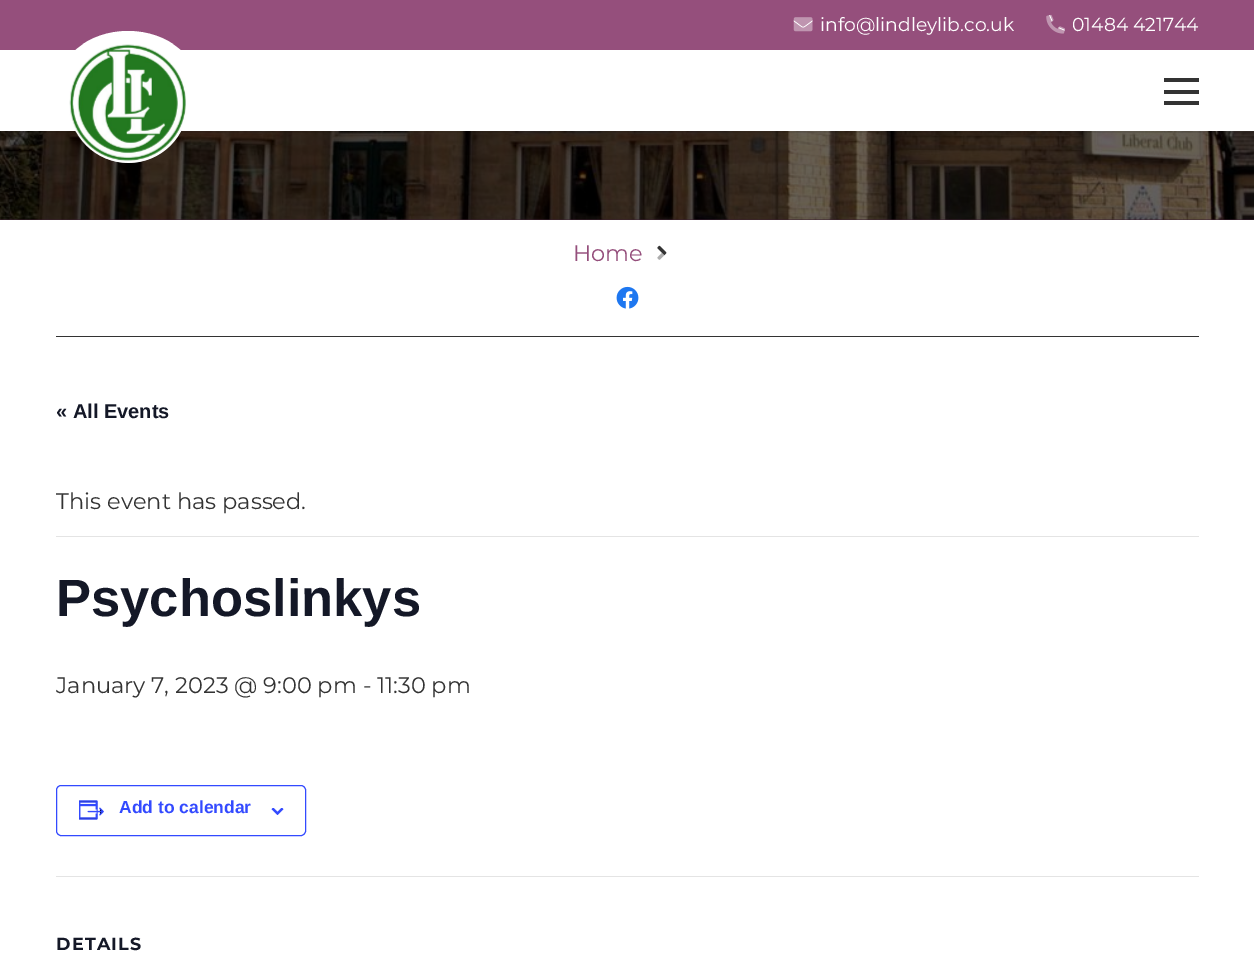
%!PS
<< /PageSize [1254 980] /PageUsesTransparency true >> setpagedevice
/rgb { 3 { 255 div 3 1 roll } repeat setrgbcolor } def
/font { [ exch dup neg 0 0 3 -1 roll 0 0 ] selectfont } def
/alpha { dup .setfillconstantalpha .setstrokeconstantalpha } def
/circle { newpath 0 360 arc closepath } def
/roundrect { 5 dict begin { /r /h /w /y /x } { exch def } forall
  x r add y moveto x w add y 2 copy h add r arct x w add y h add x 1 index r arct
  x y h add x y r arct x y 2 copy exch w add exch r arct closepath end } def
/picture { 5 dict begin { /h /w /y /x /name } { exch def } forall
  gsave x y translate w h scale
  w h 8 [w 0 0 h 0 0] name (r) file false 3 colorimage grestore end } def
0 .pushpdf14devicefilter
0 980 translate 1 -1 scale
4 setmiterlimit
255 255 255 rgb
0 0 1254 980 rectfill
149 79 124 rgb
0 0 1254 50 rectfill
(img/2.rgb) 793 20 20 8 picture
(img/1.rgb) 793 17 20 15 picture
(img/4.rgb) 1049 15 16 16 picture
(img/3.rgb) 1046 14 19 20 picture
60 32 50 rgb
0 219 1254 1 rectfill
(img/6.rgb) 0 131 1254 89 picture
0.08 alpha
0 0 0 rgb
0 131 1254 2 rectfill
1 alpha
255 255 255 rgb
128 31 moveto 168 31 200 57.5 200 90.5 curveto 200 123.5 168 150 128 150 curveto 88 150 56 123.5 56 90.5 curveto 56 57.5 88 31 128 31 curveto closepath fill
128.5 103.5 59.5 circle fill
(img/5.rgb) 69 44 118 119 picture
[
  [1164 90 35 4 51 51 51]
  [1164 78 35 4 51 51 51]
  [1164 101 35 4 51 51 51]
] { aload pop rgb rectfill } forall
(img/7.rgb) 657 245 10 11 picture
(img/8.rgb) 657 253 8 7 picture
(img/9.rgb) 616 286 23 23 picture
56 336 1143 1 rectfill
228 228 228 rgb
56 536 1143 1 rectfill
51 74 255 rgb
56.5 785.5 249 50 4.5 roundrect stroke
(img/10.rgb) 79 800 25 20 picture
(img/11.rgb) 271 808 13 7 picture
228 228 228 rgb
56 876 1143 1 rectfill
/Montserrat-Regular 18.75 font
255 255 255 rgb
820 31 moveto (info@lindleylib.co.uk) show
1072 31 moveto (01484 421744) show
/Montserrat-Regular 22.5 font
149 79 124 rgb
573 261 moveto (Home) show
/LiberationSans-Bold 20 font
20 24 39 rgb
56 418 moveto (« All Events) show
/Montserrat-Regular 22.5 font
51 51 51 rgb
56 509 moveto (This event has passed.) show
/LiberationSans-Bold 52.5 font
20 24 39 rgb
56 616 moveto (Psychoslinkys) show
/Montserrat-Regular 22.5 font
51 51 51 rgb
56 693 moveto (January 7, 2023 @ 9:00 pm - 11:30 pm) show
/LiberationSans-Bold 17.5 font
51 74 255 rgb
119 813 moveto (Add to calendar) show
/Montserrat-Bold 17.5 font
20 24 39 rgb
56 950 moveto 1.25 0 (DETAILS) ashow
.poppdf14devicefilter showpage
